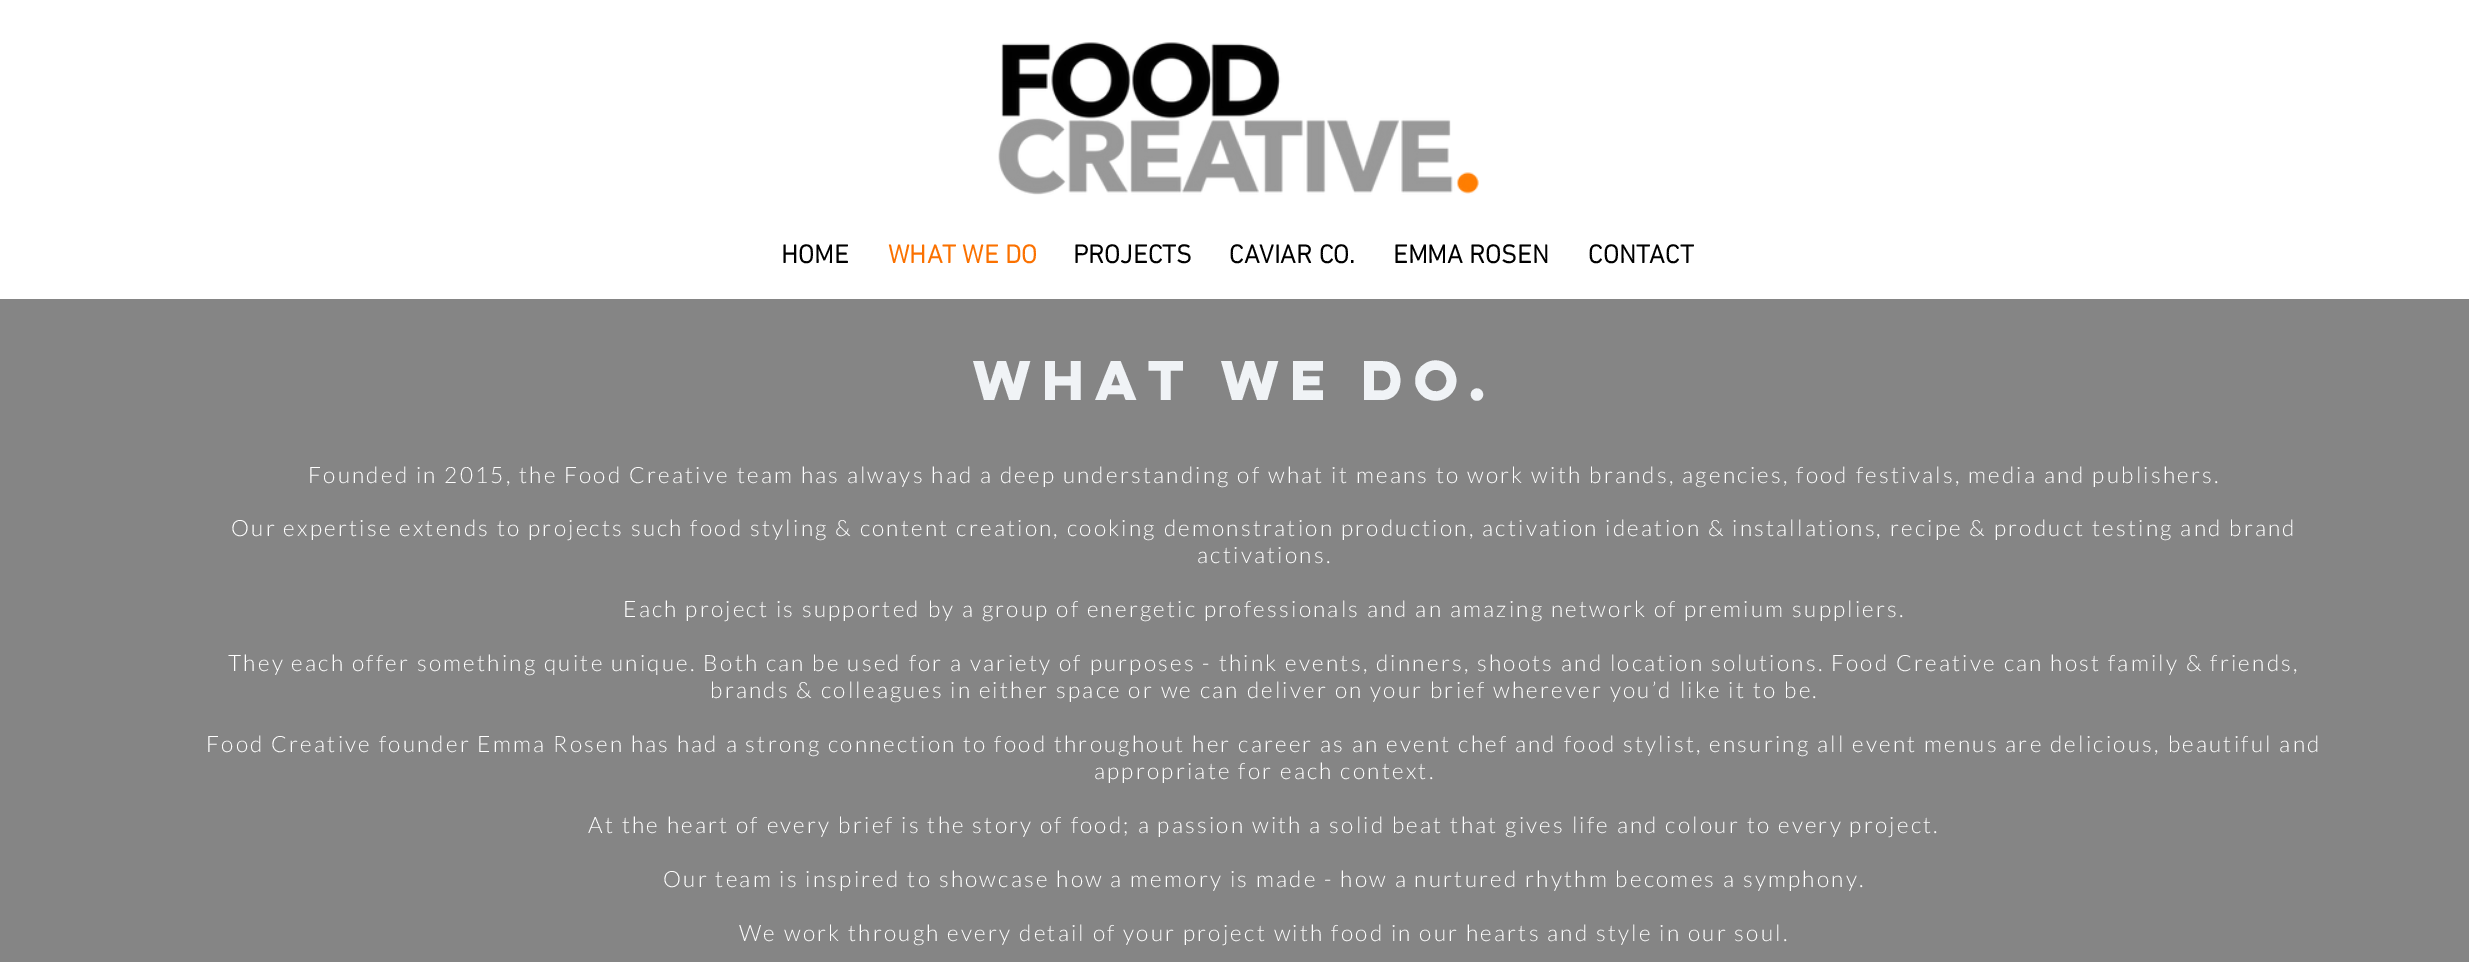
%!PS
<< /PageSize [2469 962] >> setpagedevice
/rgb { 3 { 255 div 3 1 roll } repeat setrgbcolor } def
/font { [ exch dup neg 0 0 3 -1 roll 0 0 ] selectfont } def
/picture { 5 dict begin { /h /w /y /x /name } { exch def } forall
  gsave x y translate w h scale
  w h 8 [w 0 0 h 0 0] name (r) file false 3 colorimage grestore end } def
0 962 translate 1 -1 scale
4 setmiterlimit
255 255 255 rgb
0 0 2469 962 rectfill
(img/1.rgb) 998 42 481 153 picture
133 133 133 rgb
0 299 2469 663 rectfill
/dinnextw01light-Bold 26.25 font
0 0 0 rgb
781 263 moveto (HOME) show
251 113 0 rgb
888 263 moveto (WHAT WE DO) show
0 0 0 rgb
[
  [(PROJECTS) 1073 263]
  [(CAVIAR CO.) 1229 263]
  [(EMMA ROSEN) 1393 263]
  [(CONTACT) 1588 263]
] { aload pop moveto show } forall
/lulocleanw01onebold-Bold 50 font
240 243 246 rgb
973 400 moveto (WHAT WE DO.) show
/Lato-Light 22.5 font
255 255 255 rgb
308 483 moveto 2.25 0 (Founded in 2015, the Food Creative team has always had a deep understanding of what it means to work with brands, agencies, food festivals, media and publishers.) ashow
231 536 moveto 2.25 0 (Our expertise extends to projects such food styling & content creation, cooking demonstration production, activation ideation & installations, recipe & product testing and brand) ashow
1197 563 moveto 2.25 0 (activations.) ashow
623 617 moveto 2.25 0 (Each project is supported by a group of energetic professionals and an amazing network of premium suppliers.) ashow
228 671 moveto 2.25 0 (They each offer something quite unique. Both can be used for a variety of purposes - think events, dinners, shoots and location solutions. Food Creative can host family & friends,) ashow
710 698 moveto 2.25 0 (brands & colleagues in either space or we can deliver on your brief wherever you’d like it to be.) ashow
206 752 moveto 2.25 0 (Food Creative founder Emma Rosen has had a strong connection to food throughout her career as an event chef and food stylist, ensuring all event menus are delicious, beautiful and) ashow
1094 779 moveto 2.25 0 (appropriate for each context.) ashow
588 833 moveto 2.25 0 (At the heart of every brief is the story of food; a passion with a solid beat that gives life and colour to every project.) ashow
663 887 moveto 2.25 0 (Our team is inspired to showcase how a memory is made - how a nurtured rhythm becomes a symphony.) ashow
739 941 moveto 2.25 0 (We work through every detail of your project with food in our hearts and style in our soul.) ashow
showpage
